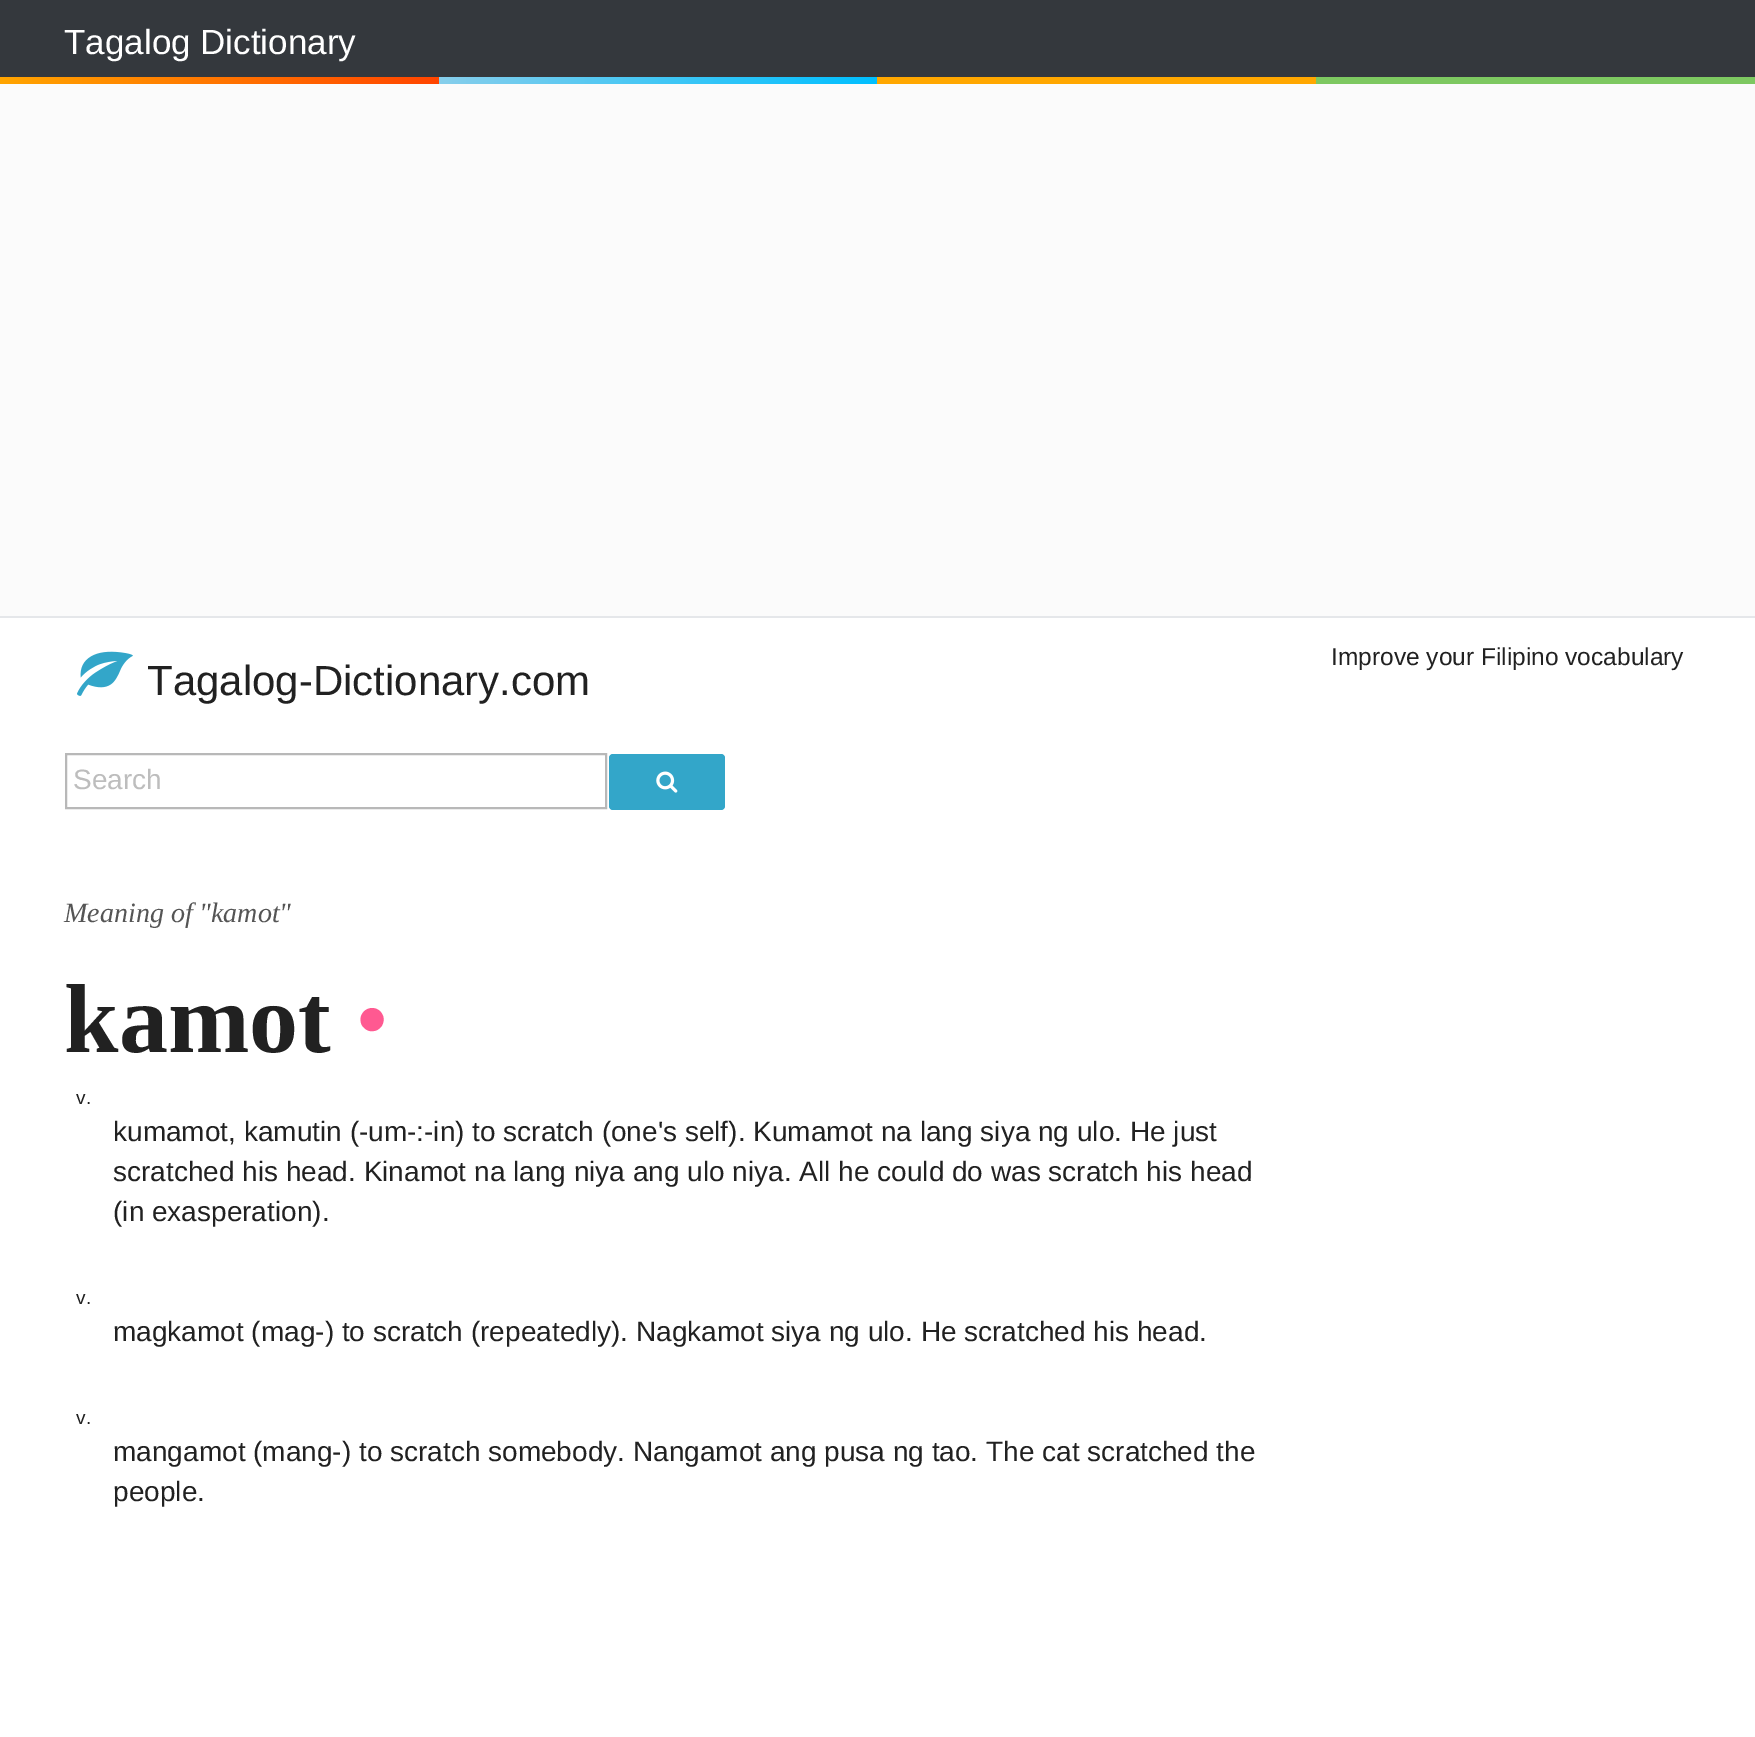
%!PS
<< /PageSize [1755 1737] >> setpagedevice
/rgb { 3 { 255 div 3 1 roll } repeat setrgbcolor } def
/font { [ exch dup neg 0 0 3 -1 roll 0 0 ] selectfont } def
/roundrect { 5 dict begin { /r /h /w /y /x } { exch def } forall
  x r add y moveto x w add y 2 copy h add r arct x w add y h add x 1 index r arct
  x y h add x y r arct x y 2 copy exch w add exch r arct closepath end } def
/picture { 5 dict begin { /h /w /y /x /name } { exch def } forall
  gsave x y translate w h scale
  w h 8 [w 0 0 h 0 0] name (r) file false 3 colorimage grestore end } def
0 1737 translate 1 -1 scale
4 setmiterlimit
255 255 255 rgb
0 0 1755 1737 rectfill
52 56 61 rgb
0 0 1755 77 rectfill
gsave 0 77 moveto 1755 77 lineto 1755 84 lineto 0 84 lineto closepath clip newpath
<< /ShadingType 2 /ColorSpace /DeviceRGB /Coords [0 81 1755 80] /Extend [true true] /Function << /FunctionType 3 /Domain [0 1] /Functions [<< /FunctionType 2 /Domain [0 1] /C0 [1 0.647 0] /C1 [1 0.271 0] /N 1 >> << /FunctionType 2 /Domain [0 1] /C0 [0.529 0.808 0.922] /C1 [0 0.749 1] /N 1 >> << /FunctionType 2 /Domain [0 1] /C0 [1 0.655 0] /C1 [1 0.655 0] /N 1 >> << /FunctionType 2 /Domain [0 1] /C0 [0.49 0.784 0.38] /C1 [0.49 0.784 0.38] /N 1 >>] /Bounds [0.25 0.5 0.75] /Encode [0 1 0 1 0 1 0 1] >> >> shfill grestore
251 251 251 rgb
0 84 1755 532 rectfill
229 231 234 rgb
0 616 1755 2 rectfill
(img/1.rgb) 77 651 56 45 picture
184 184 184 rgb
2 setlinewidth
66 754 540 54 rectstroke
51 166 201 rgb
609 754 116 56 4 roundrect fill
(img/2.rgb) 656 771 22 22 picture
/LiberationSans-Regular 35 font
255 255 255 rgb
64 54 moveto (Tagalog Dictionary) show
/LiberationSans-Regular 24.5 font
33 33 33 rgb
1331 665 moveto (Improve your Filipino vocabulary) show
/LiberationSans-Regular 42 font
147 695 moveto (Tagalog-Dictionary.com) show
/LiberationSans-Regular 28 font
189 189 189 rgb
73 789 moveto (Search) show
/LiberationSerif-Italic 28 font
85 85 85 rgb
64 922 moveto (Meaning of "kamot") show
/LiberationSerif-Bold 98 font
33 33 33 rgb
64 1052 moveto (kamot) show
/LiberationSerif-Regular 98 font
255 89 145 rgb
355 1052 moveto (•) show
/LiberationSans-Regular 19 font
33 33 33 rgb
76 1104 moveto (v.) show
/LiberationSans-Regular 28 font
[
  [(kumamot, kamutin \(-um-:-in\) to scratch \(one's self\). Kumamot na lang siya ng ulo. He just) 113 1141]
  [(scratched his head. Kinamot na lang niya ang ulo niya. All he could do was scratch his head) 113 1181]
  [(\(in exasperation\).) 113 1221]
] { aload pop moveto show } forall
/LiberationSans-Regular 19 font
76 1304 moveto (v.) show
/LiberationSans-Regular 28 font
113 1341 moveto (magkamot \(mag-\) to scratch \(repeatedly\). Nagkamot siya ng ulo. He scratched his head.) show
/LiberationSans-Regular 19 font
76 1424 moveto (v.) show
/LiberationSans-Regular 28 font
113 1461 moveto (mangamot \(mang-\) to scratch somebody. Nangamot ang pusa ng tao. The cat scratched the) show
113 1501 moveto (people.) show
showpage
